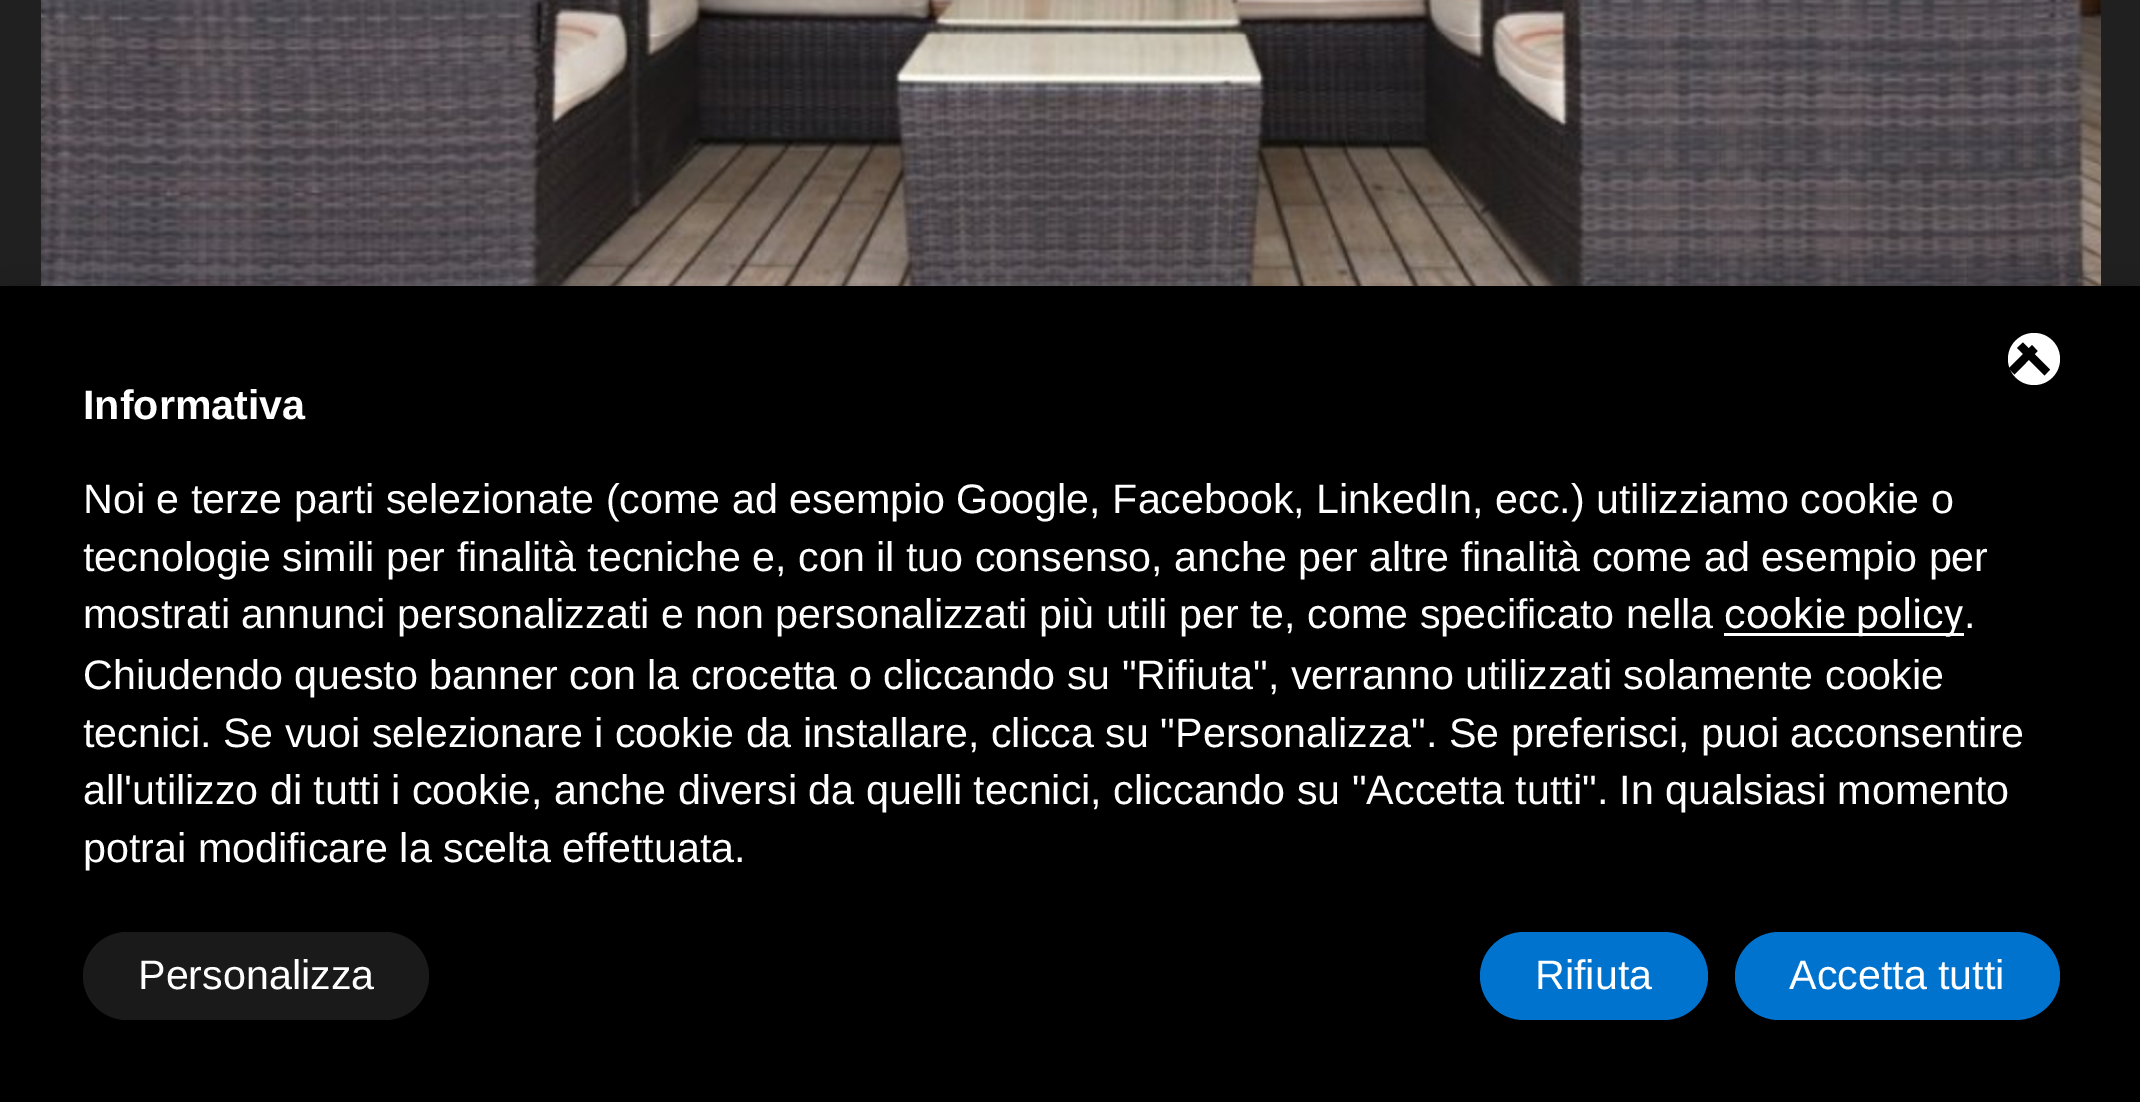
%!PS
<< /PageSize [2140 1102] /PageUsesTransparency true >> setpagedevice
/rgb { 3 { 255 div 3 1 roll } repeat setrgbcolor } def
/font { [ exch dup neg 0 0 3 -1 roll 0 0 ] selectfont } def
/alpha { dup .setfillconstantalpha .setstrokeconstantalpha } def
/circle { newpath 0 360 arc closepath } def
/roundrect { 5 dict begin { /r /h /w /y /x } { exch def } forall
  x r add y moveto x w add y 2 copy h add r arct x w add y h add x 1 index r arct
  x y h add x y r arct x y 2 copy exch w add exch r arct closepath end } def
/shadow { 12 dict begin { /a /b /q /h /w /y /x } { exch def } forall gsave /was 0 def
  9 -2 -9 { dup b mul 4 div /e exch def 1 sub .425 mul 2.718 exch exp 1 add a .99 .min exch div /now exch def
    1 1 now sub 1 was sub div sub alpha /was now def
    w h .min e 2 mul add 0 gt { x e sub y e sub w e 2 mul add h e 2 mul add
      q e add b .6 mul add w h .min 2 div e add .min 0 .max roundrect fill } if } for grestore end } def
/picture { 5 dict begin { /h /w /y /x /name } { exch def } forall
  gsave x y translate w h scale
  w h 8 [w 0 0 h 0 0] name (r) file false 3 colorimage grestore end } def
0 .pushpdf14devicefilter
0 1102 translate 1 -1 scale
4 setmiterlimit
32 32 32 rgb
0 0 2140 1102 rectfill
(img/1.rgb) 41 0 2060 286 picture
0 0 0 rgb
0 314 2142 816 0 41 0.33 shadow
0 286 2140 816 rectfill
255 255 255 rgb
2034 359 26 circle fill
0 0 0 rgb
2017 348 moveto 2023 342.5 lineto 2050 369.5 lineto 2044.5 375.5 lineto closepath fill
2032 345 moveto 2037.5 351 lineto 2014.5 374.5 lineto 2008.5 368.5 lineto closepath fill
255 255 255 rgb
1724 633 240 3 rectfill
26 26 26 rgb
83 932 346 88 44 roundrect fill
0 115 206 rgb
1480 932 228 88 44 roundrect fill
1735 932 325 88 44 roundrect fill
/LiberationSans-Bold 41.25 font
255 255 255 rgb
83 419 moveto (Informativa) show
/LiberationSans-Regular 41.25 font
[
  [(Noi e terze parti selezionate \(come ad esempio Google, Facebook, LinkedIn, ecc.\) utilizziamo cookie o) 83 513]
  [(tecnologie simili per finalità tecniche e, con il tuo consenso, anche per altre finalità come ad esempio per) 83 571]
  [(mostrati annunci personalizzati e non personalizzati più utili per te, come specificato nella) 83 628]
] { aload pop moveto show } forall
/Roboto-Regular 41.25 font
1724 628 moveto (cookie policy) show
/LiberationSans-Regular 41.25 font
[
  [(.) 1964 628]
  [(Chiudendo questo banner con la crocetta o cliccando su "Rifiuta", verranno utilizzati solamente cookie) 83 689]
  [(tecnici. Se vuoi selezionare i cookie da installare, clicca su "Personalizza". Se preferisci, puoi acconsentire) 83 747]
  [(all'utilizzo di tutti i cookie, anche diversi da quelli tecnici, cliccando su "Accetta tutti". In qualsiasi momento) 83 804]
  [(potrai modificare la scelta effettuata.) 83 862]
  [(Personalizza) 138 989]
  [(Rifiuta) 1535 989]
  [(Accetta tutti) 1789 989]
] { aload pop moveto show } forall
.poppdf14devicefilter showpage
